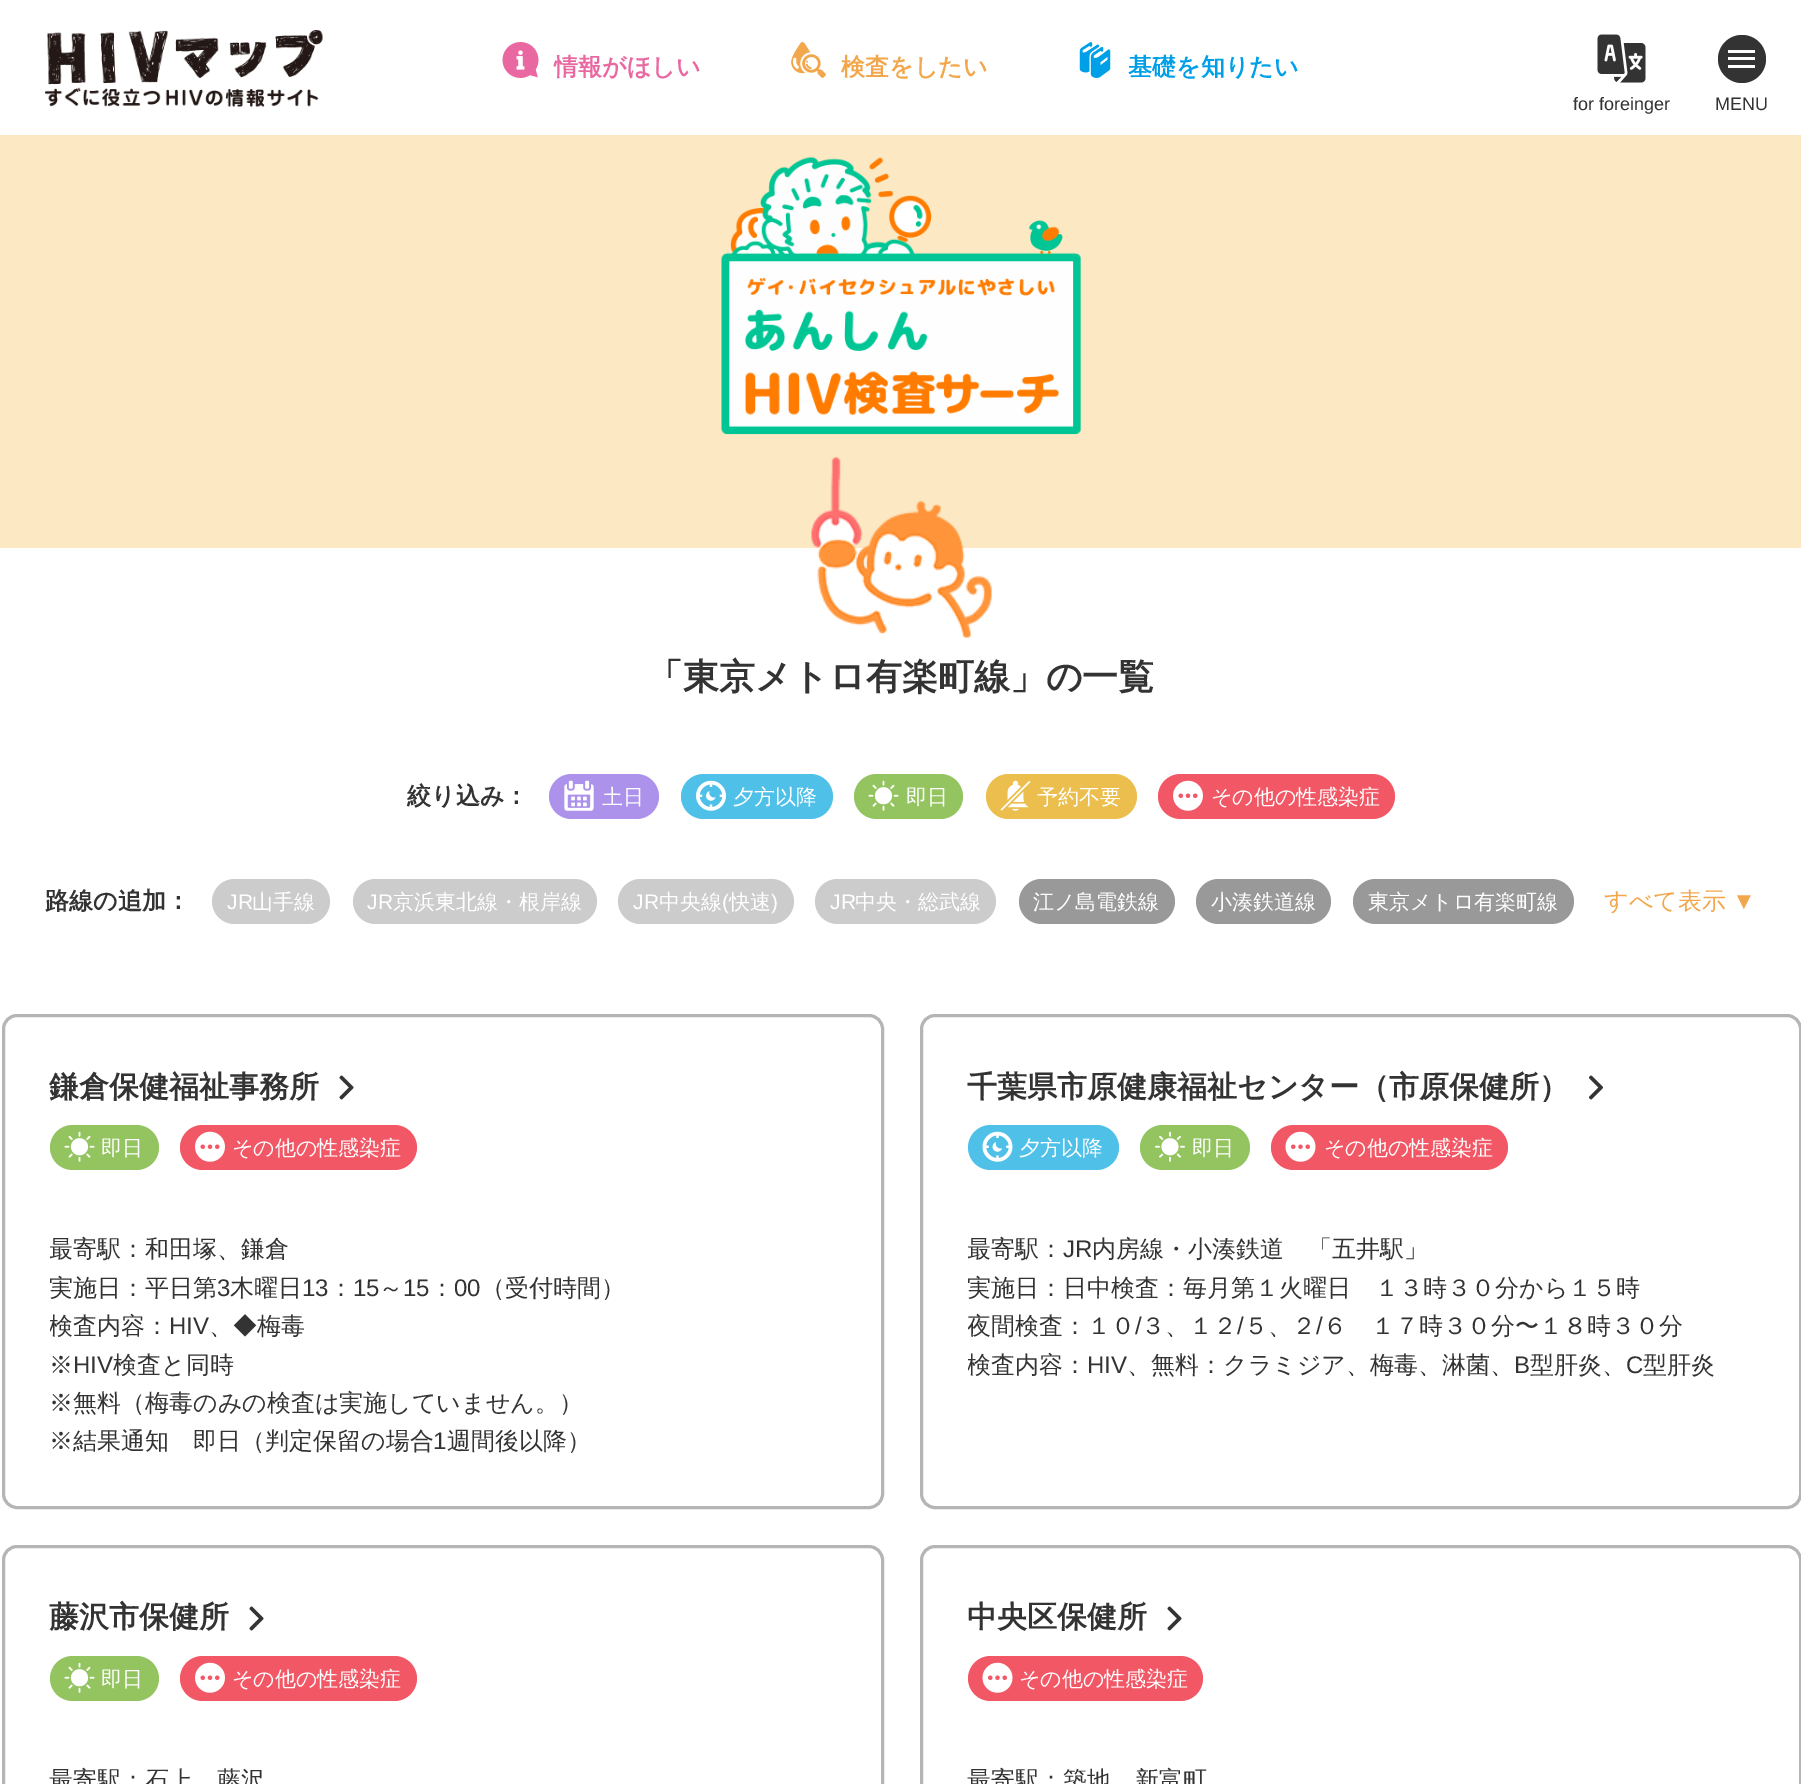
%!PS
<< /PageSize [1801 1784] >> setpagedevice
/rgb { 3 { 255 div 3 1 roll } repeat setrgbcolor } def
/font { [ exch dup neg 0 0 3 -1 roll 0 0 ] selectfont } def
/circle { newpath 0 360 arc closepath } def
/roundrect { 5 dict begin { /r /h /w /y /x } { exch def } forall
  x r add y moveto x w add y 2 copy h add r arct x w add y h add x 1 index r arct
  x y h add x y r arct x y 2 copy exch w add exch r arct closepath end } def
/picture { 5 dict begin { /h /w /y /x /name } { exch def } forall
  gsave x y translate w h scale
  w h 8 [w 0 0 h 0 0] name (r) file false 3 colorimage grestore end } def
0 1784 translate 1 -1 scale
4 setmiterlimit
255 255 255 rgb
0 0 1801 1784 rectfill
(img/1.rgb) 45 30 278 77 picture
(img/2.rgb) 502 42 37 36 picture
(img/3.rgb) 791 42 35 36 picture
(img/4.rgb) 1079 42 32 36 picture
(img/5.rgb) 1597 34 49 49 picture
51 51 51 rgb
1742 59 24 circle fill
[
  [1728 50 27 3 255 255 255]
  [1728 57 27 3 255 255 255]
  [1728 65 27 3 255 255 255]
  [0 135 1801 413 252 232 194]
] { aload pop rgb rectfill } forall
(img/6.rgb) 721 157 361 278 picture
(img/7.rgb) 811 457 181 181 picture
172 146 235 rgb
549 774 110 45 22.5 roundrect fill
(img/8.rgb) 564 780 30 31 picture
79 193 232 rgb
681 774 152 45 22.5 roundrect fill
(img/9.rgb) 696 780 30 31 picture
147 196 96 rgb
854 774 109 45 22.5 roundrect fill
(img/10.rgb) 868 780 31 31 picture
235 190 77 rgb
986 774 151 45 22.5 roundrect fill
(img/11.rgb) 1000 780 31 31 picture
242 87 102 rgb
1158 774 237 45 22.5 roundrect fill
(img/12.rgb) 1173 780 30 31 picture
204 204 204 rgb
212 879 118 45 22.5 roundrect fill
353 879 244 45 22.5 roundrect fill
618 879 176 45 22.5 roundrect fill
815 879 181 45 22.5 roundrect fill
153 153 153 rgb
1019 879 156 45 22.5 roundrect fill
1196 879 135 45 22.5 roundrect fill
1353 879 221 45 22.5 roundrect fill
181 181 181 rgb
3 setlinewidth
3.5 1015.5 879 492 13.5 roundrect stroke
(img/13.rgb) 339 1075 15 25 picture
147 196 96 rgb
50 1125 109 45 22.5 roundrect fill
(img/10.rgb) 64 1131 31 31 picture
242 87 102 rgb
180 1125 237 45 22.5 roundrect fill
(img/12.rgb) 195 1131 30 31 picture
181 181 181 rgb
921.5 1015.5 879 492 13.5 roundrect stroke
(img/14.rgb) 1589 1075 14 25 picture
79 193 232 rgb
968 1125 151 45 22.5 roundrect fill
(img/15.rgb) 982 1131 31 31 picture
147 196 96 rgb
1140 1125 110 45 22.5 roundrect fill
(img/16.rgb) 1155 1131 30 31 picture
242 87 102 rgb
1271 1125 237 45 22.5 roundrect fill
(img/17.rgb) 1285 1131 31 31 picture
181 181 181 rgb
3.5 1546.5 879 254 13.5 roundrect stroke
(img/13.rgb) 249 1606 15 25 picture
147 196 96 rgb
50 1656 109 45 22.5 roundrect fill
(img/10.rgb) 64 1662 31 31 picture
242 87 102 rgb
180 1656 237 45 22.5 roundrect fill
(img/12.rgb) 195 1662 30 31 picture
181 181 181 rgb
921.5 1546.5 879 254 13.5 roundrect stroke
(img/13.rgb) 1167 1606 15 25 picture
242 87 102 rgb
968 1656 235 45 22.5 roundrect fill
(img/17.rgb) 982 1662 31 31 picture
/WenQuanYiZenHei-Bold 24 font
234 104 162 rgb
554 75 moveto (情報がほしい) show
243 167 76 rgb
841 75 moveto (検査をしたい) show
0 160 233 rgb
1128 75 moveto (基礎を知りたい) show
/LiberationSans-Regular 18 font
51 51 51 rgb
1573 110 moveto (for foreinger) show
1715 110 moveto (MENU) show
/WenQuanYiZenHei-Bold 36 font
647 689 moveto (「東京メトロ有楽町線」の一覧) show
/WenQuanYiZenHei-Bold 24 font
407 804 moveto (絞り込み：) show
/WenQuanYiZenHei-Medium 21 font
255 255 255 rgb
[
  [(土日) 602 804]
  [(夕方以降) 733 804]
  [(即日) 906 804]
  [(予約不要) 1037 804]
  [(その他の性感染症) 1211 804]
] { aload pop moveto show } forall
/WenQuanYiZenHei-Bold 24 font
51 51 51 rgb
45 909 moveto (路線の追加：) show
/LiberationSans-Regular 21 font
255 255 255 rgb
227 909 moveto (JR) show
/WenQuanYiZenHei-Medium 21 font
252 909 moveto (山手線) show
/LiberationSans-Regular 21 font
367 909 moveto (JR) show
/WenQuanYiZenHei-Medium 21 font
393 909 moveto (京浜東北線・根岸線) show
/LiberationSans-Regular 21 font
633 909 moveto (JR) show
/WenQuanYiZenHei-Medium 21 font
659 909 moveto (中央線) show
/LiberationSans-Regular 21 font
722 909 moveto (\() show
/WenQuanYiZenHei-Medium 21 font
729 909 moveto (快速) show
/LiberationSans-Regular 21 font
771 909 moveto (\)) show
830 909 moveto (JR) show
/WenQuanYiZenHei-Medium 21 font
[
  [(中央・総武線) 855 909]
  [(江ノ島電鉄線) 1033 909]
  [(小湊鉄道線) 1211 909]
  [(東京メトロ有楽町線) 1368 909]
] { aload pop moveto show } forall
/WenQuanYiZenHei-Medium 24 font
243 167 76 rgb
1604 909 moveto (すべて表示) show
/LiberationSans-Regular 24 font
1732 909 moveto (▼) show
/WenQuanYiZenHei-Bold 30 font
51 51 51 rgb
49 1097 moveto (鎌倉保健福祉事務所) show
/WenQuanYiZenHei-Medium 21 font
255 255 255 rgb
101 1155 moveto (即日) show
232 1155 moveto (その他の性感染症) show
gsave
50 1230 786 231 rectclip
/WenQuanYiZenHei-Medium 24 font
51 51 51 rgb
49 1257 moveto (最寄駅：和田塚、鎌倉) show
49 1296 moveto (実施日：平日第) show
grestore
/LiberationSans-Regular 24 font
51 51 51 rgb
217 1296 moveto (3) show
/WenQuanYiZenHei-Medium 24 font
230 1296 moveto (木曜日) show
/LiberationSans-Regular 24 font
302 1296 moveto (13) show
/WenQuanYiZenHei-Medium 24 font
329 1296 moveto (：) show
/LiberationSans-Regular 24 font
353 1296 moveto (15) show
/WenQuanYiZenHei-Medium 24 font
379 1296 moveto (～) show
/LiberationSans-Regular 24 font
403 1296 moveto (15) show
/WenQuanYiZenHei-Medium 24 font
430 1296 moveto (：) show
/LiberationSans-Regular 24 font
454 1296 moveto (00) show
/WenQuanYiZenHei-Medium 24 font
481 1296 moveto (（受付時間）) show
gsave
50 1230 786 231 rectclip
49 1334 moveto (検査内容：) show
grestore
/LiberationSans-Regular 24 font
169 1334 moveto (HIV) show
/WenQuanYiZenHei-Medium 24 font
209 1334 moveto (、◆梅毒) show
49 1373 moveto (※) show
/LiberationSans-Regular 24 font
73 1373 moveto (HIV) show
/WenQuanYiZenHei-Medium 24 font
[
  [(検査と同時) 113 1373]
  [(※無料（梅毒のみの検査は実施していません。）) 49 1411]
  [(※結果通知　即日（判定保留の場合) 49 1449]
] { aload pop moveto show } forall
/LiberationSans-Regular 24 font
433 1449 moveto (1) show
/WenQuanYiZenHei-Medium 24 font
447 1449 moveto (週間後以降）) show
/WenQuanYiZenHei-Bold 30 font
967 1097 moveto (千葉県市原健康福祉センター（市原保健所）) show
/WenQuanYiZenHei-Medium 21 font
255 255 255 rgb
[
  [(夕方以降) 1019 1155]
  [(即日) 1192 1155]
  [(その他の性感染症) 1324 1155]
] { aload pop moveto show } forall
gsave
968 1230 786 155 rectclip
/WenQuanYiZenHei-Medium 24 font
51 51 51 rgb
967 1257 moveto (最寄駅：) show
grestore
/LiberationSans-Regular 24 font
51 51 51 rgb
1063 1257 moveto (JR) show
/WenQuanYiZenHei-Medium 24 font
1092 1257 moveto (内房線・小湊鉄道　「五井駅」) show
gsave
968 1230 786 155 rectclip
967 1296 moveto (実施日：日中検査：毎月第１火曜日　１３時３０分から１５時) show
967 1334 moveto (夜間検査：１０) show
grestore
/LiberationSans-Regular 24 font
1135 1334 moveto (/) show
/WenQuanYiZenHei-Medium 24 font
1141 1334 moveto (３、１２) show
/LiberationSans-Regular 24 font
1237 1334 moveto (/) show
/WenQuanYiZenHei-Medium 24 font
1244 1334 moveto (５、２) show
/LiberationSans-Regular 24 font
1316 1334 moveto (/) show
/WenQuanYiZenHei-Medium 24 font
1323 1334 moveto (６　１７時３０分〜１８時３０分) show
gsave
968 1230 786 155 rectclip
967 1373 moveto (検査内容：) show
grestore
/LiberationSans-Regular 24 font
1087 1373 moveto (HIV) show
/WenQuanYiZenHei-Medium 24 font
1127 1373 moveto (、無料：クラミジア、梅毒、淋菌、) show
/LiberationSans-Regular 24 font
1514 1373 moveto (B) show
/WenQuanYiZenHei-Medium 24 font
1530 1373 moveto (型肝炎、) show
/LiberationSans-Regular 24 font
1626 1373 moveto (C) show
/WenQuanYiZenHei-Medium 24 font
1643 1373 moveto (型肝炎) show
/WenQuanYiZenHei-Bold 30 font
49 1627 moveto (藤沢市保健所) show
/WenQuanYiZenHei-Medium 21 font
255 255 255 rgb
101 1686 moveto (即日) show
232 1686 moveto (その他の性感染症) show
/WenQuanYiZenHei-Medium 24 font
51 51 51 rgb
49 1788 moveto (最寄駅：石上、藤沢) show
/WenQuanYiZenHei-Bold 30 font
967 1627 moveto (中央区保健所) show
/WenQuanYiZenHei-Medium 21 font
255 255 255 rgb
1019 1686 moveto (その他の性感染症) show
/WenQuanYiZenHei-Medium 24 font
51 51 51 rgb
967 1788 moveto (最寄駅：築地、新富町) show
showpage
